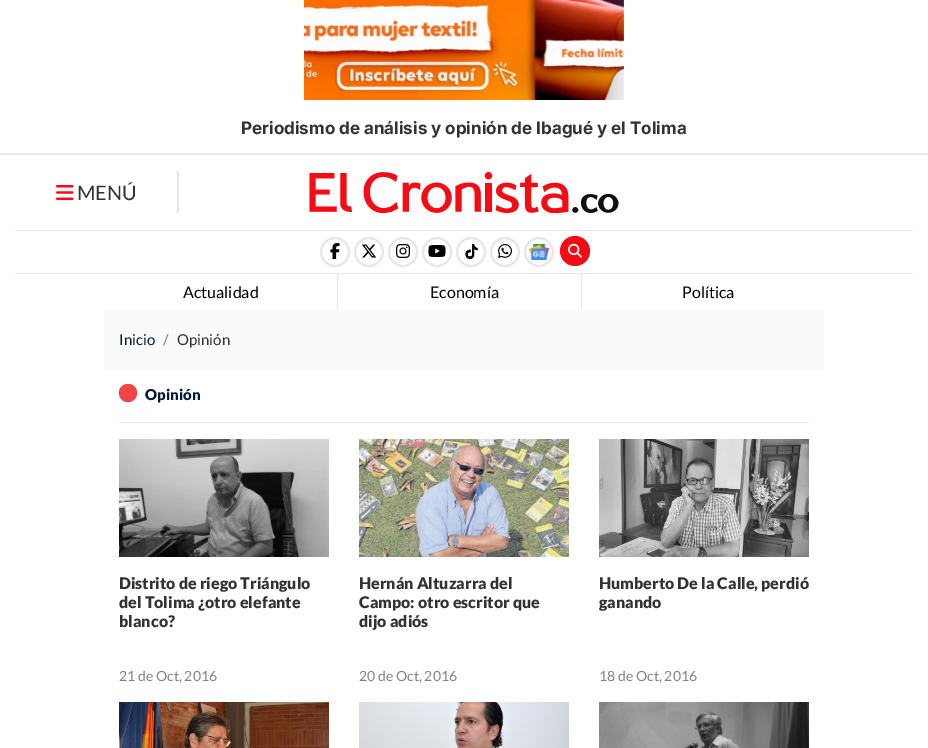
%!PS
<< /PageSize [928 748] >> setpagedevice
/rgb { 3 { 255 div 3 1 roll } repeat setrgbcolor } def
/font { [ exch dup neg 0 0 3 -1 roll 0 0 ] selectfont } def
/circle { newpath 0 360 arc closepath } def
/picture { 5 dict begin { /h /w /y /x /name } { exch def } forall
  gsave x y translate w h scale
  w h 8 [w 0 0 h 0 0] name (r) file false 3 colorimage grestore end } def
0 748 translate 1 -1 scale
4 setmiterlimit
255 255 255 rgb
0 0 928 748 rectfill
(img/1.rgb) 304 0 320 100 picture
231 230 233 rgb
0 153 928 2 rectfill
179 210 moveto 179 174 lineto 179 173 178 172 177 171 curveto 176 171 lineto 178 173 177 189 177 192 curveto 177 195 178 211 176 213 curveto 177 213 lineto 178 212 179 211 179 210 curveto closepath fill
(img/2.rgb) 56 185 18 15 picture
(img/3.rgb) 309 172 310 41 picture
231 231 231 rgb
15 230 898 1 rectfill
15 273 898 1 rectfill
231 230 233 rgb
2 setlinewidth
335 252 14 circle stroke
(img/4.rgb) 330 243 10 16 picture
369 252 14 circle stroke
(img/5.rgb) 362 244 15 14 picture
403 252 14 circle stroke
(img/6.rgb) 396 244 14 14 picture
437 252 14 circle stroke
(img/7.rgb) 428 245 18 12 picture
471 252 14 circle stroke
(img/8.rgb) 465 244 13 15 picture
505 252 14 circle stroke
(img/9.rgb) 498 244 14 14 picture
539 252 14 circle stroke
(img/10.rgb) 529 244 20 16 picture
246 11 20 rgb
575 251 15 circle fill
(img/11.rgb) 568 243 14 15 picture
[
  [337 274 1 35 231 230 233]
  [581 274 1 35 231 230 233]
  [104 309 720 60 250 250 250]
] { aload pop rgb rectfill } forall
242 68 68 rgb
128 402 moveto 140 402 140 384 128 384 curveto 116 384 116 402 128 402 curveto closepath fill
230 230 230 rgb
119 422 690 1 rectfill
(img/12.rgb) 119 439 210 118 picture
(img/13.rgb) 359 439 210 118 picture
(img/14.rgb) 599 439 210 118 picture
(img/15.rgb) 119 702 210 46 picture
(img/16.rgb) 359 702 210 46 picture
(img/17.rgb) 599 702 210 46 picture
/Inter-Bold 17.2 font
51 51 51 rgb
241 134 moveto (Periodismo de análisis y opinión de Ibagué y el Tolima) show
/Lato-Regular 20 font
77 200 moveto (MENÚ) show
/Lato-Regular 16 font
0 0 0 rgb
[
  [(Actualidad) 183 298]
  [(Economía) 430 298]
  [(Política) 682 298]
] { aload pop moveto show } forall
/Lato-Regular 15 font
4 28 59 rgb
119 345 moveto (Inicio) show
108 117 125 rgb
163 345 moveto (/) show
51 51 51 rgb
177 345 moveto (Opinión) show
/Lato-Black 15 font
4 28 59 rgb
145 400 moveto (Opinión) show
/Lato-Black 16 font
51 51 51 rgb
[
  [(Distrito de riego Triángulo) 119 589]
  [(del Tolima ¿otro elefante) 119 608]
  [(blanco?) 119 627]
] { aload pop moveto show } forall
/Lato-Regular 14 font
130 130 130 rgb
119 681 moveto (21 de Oct, 2016) show
/Lato-Black 16 font
51 51 51 rgb
[
  [(Hernán Altuzarra del) 359 589]
  [(Campo: otro escritor que) 359 608]
  [(dijo adiós) 359 627]
] { aload pop moveto show } forall
/Lato-Regular 14 font
130 130 130 rgb
359 681 moveto (20 de Oct, 2016) show
/Lato-Black 16 font
51 51 51 rgb
599 589 moveto (Humberto De la Calle, perdió) show
599 608 moveto (ganando) show
/Lato-Regular 14 font
130 130 130 rgb
599 681 moveto (18 de Oct, 2016) show
showpage
